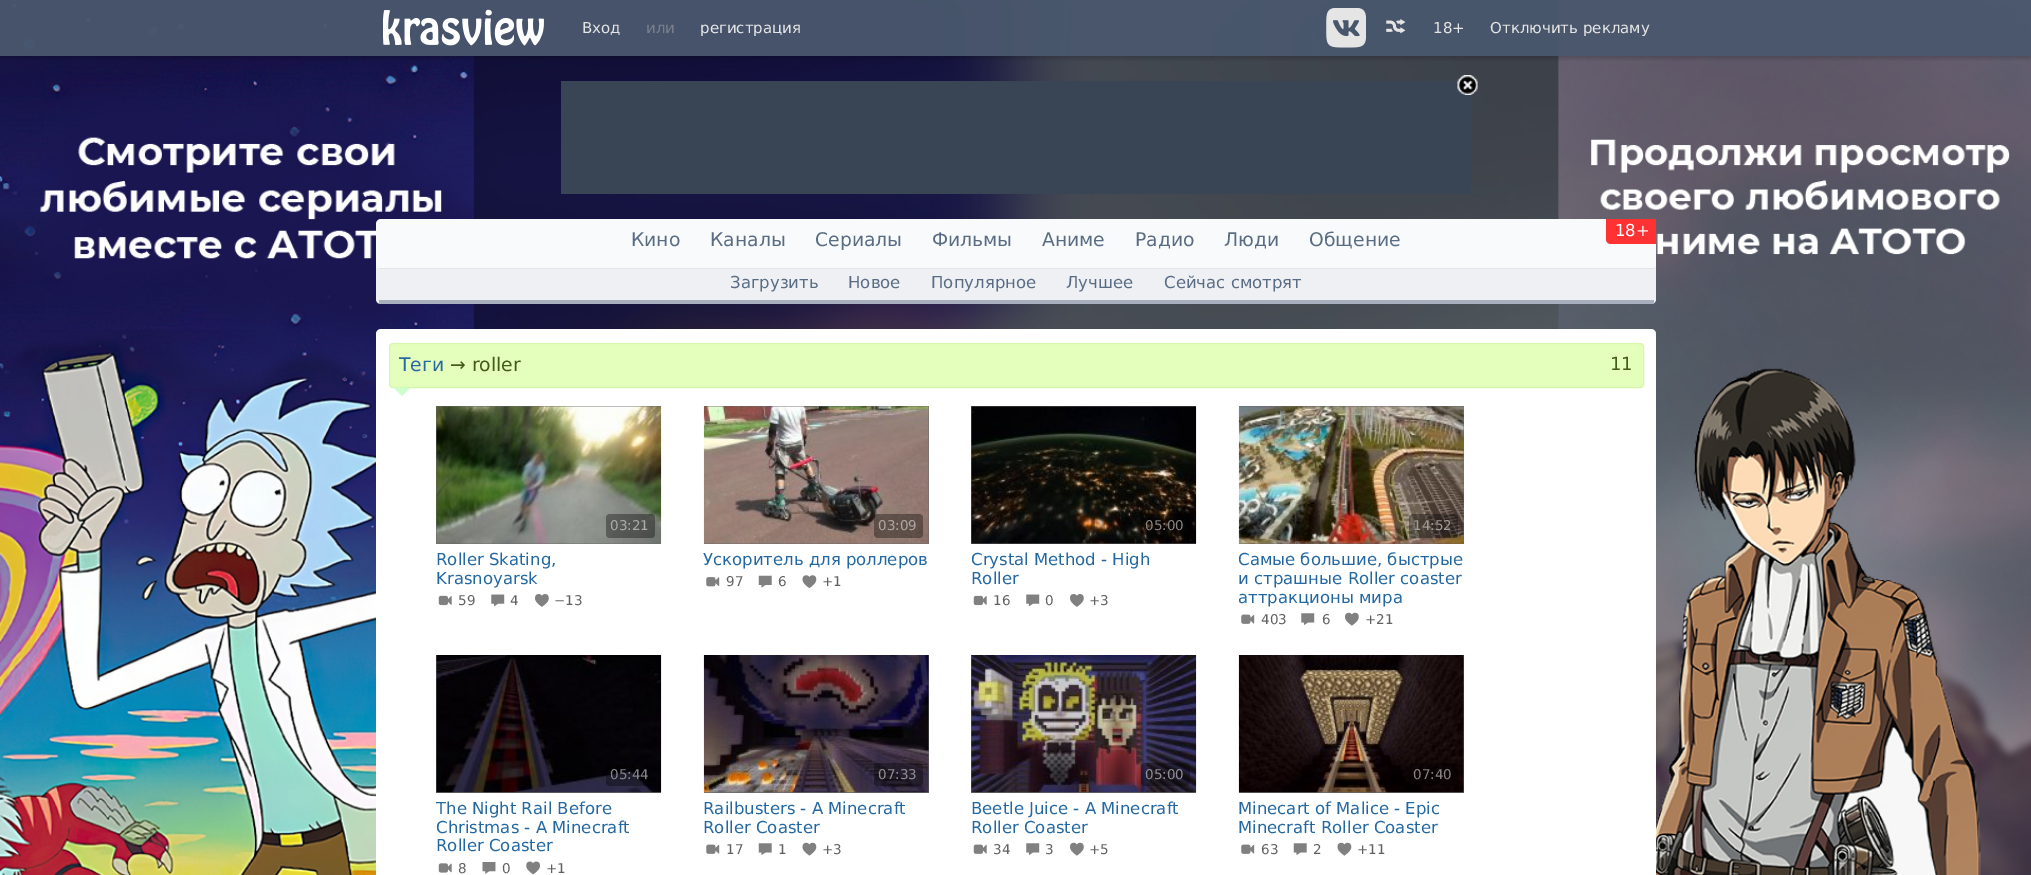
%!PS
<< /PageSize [2031 875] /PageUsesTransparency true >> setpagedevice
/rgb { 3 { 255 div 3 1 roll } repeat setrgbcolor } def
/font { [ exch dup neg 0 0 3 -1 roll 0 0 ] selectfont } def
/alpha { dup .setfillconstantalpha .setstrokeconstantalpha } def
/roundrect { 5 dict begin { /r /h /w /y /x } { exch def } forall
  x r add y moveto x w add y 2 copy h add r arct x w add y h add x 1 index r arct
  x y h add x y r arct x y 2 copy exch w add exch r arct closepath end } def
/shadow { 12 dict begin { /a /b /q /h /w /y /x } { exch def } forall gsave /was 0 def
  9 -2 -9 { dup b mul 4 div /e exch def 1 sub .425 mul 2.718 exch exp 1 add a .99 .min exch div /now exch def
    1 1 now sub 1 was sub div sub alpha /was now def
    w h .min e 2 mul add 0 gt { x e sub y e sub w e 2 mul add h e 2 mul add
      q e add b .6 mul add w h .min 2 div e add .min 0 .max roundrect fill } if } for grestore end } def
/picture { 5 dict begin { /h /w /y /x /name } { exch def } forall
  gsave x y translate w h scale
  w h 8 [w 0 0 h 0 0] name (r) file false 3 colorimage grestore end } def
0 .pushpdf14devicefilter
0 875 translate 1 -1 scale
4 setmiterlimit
255 255 255 rgb
0 0 2031 875 rectfill
(img/1.rgb) 0 0 2031 875 picture
gsave
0 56 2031 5 rectclip
0 0 0 rgb
0 1 2031 57 0 2.5 0.2 shadow
grestore
0.95 alpha
73 87 109 rgb
0 0 2031 56 rectfill
1 alpha
(img/2.rgb) 383 9 161 37 picture
(img/3.rgb) 1326 8 40 40 picture
(img/4.rgb) 1386 19 20 15 picture
57 68 85 rgb
561 81 910 113 rectfill
(img/5.rgb) 1457 75 21 20 picture
238 240 243 rgb
376 265 moveto 1656 265 lineto 1656 299 lineto 1656 302 1654 304 1651 304 curveto 381 304 lineto 378 304 376 302 376 299 curveto closepath fill
249 250 251 rgb
376 219 1280 50 5 roundrect fill
226 229 233 rgb
379 268 1275 1 rectfill
254 50 50 rgb
1606 219 moveto 1656 219 lineto 1656 244 lineto 1611 244 lineto 1608 244 1606 242 1606 239 curveto closepath fill
167 176 188 rgb
379 300 1275 4 rectfill
255 255 255 rgb
376 329 1280 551 5 roundrect fill
228 255 188 rgb
389.5 343.5 1254 44 3.5 roundrect gsave fill grestore
215 246 169 rgb
stroke
(img/6.rgb) 393 387 17 10 picture
105 105 105 rgb
436 406 225 138 rectfill
(img/7.rgb) 436 406 226 138 picture
0.35 alpha
0 0 0 rgb
606 514 49 24 4 roundrect fill
1 alpha
(img/8.rgb) 438 595 14 11 picture
(img/9.rgb) 491 594 14 13 picture
(img/10.rgb) 535 594 14 13 picture
105 105 105 rgb
704 406 225 138 rectfill
(img/11.rgb) 703 406 226 138 picture
0.35 alpha
0 0 0 rgb
874 514 49 24 4 roundrect fill
1 alpha
(img/12.rgb) 706 577 14 10 picture
(img/13.rgb) 758 575 14 13 picture
(img/14.rgb) 802 575 15 14 picture
105 105 105 rgb
971 406 225 138 rectfill
(img/15.rgb) 971 406 226 138 picture
0.35 alpha
0 0 0 rgb
1141 514 49 24 4 roundrect fill
1 alpha
(img/8.rgb) 973 595 14 11 picture
(img/9.rgb) 1026 594 14 13 picture
(img/10.rgb) 1070 594 14 13 picture
105 105 105 rgb
1239 406 225 138 rectfill
(img/16.rgb) 1238 406 226 138 picture
0.35 alpha
0 0 0 rgb
1409 514 49 24 4 roundrect fill
1 alpha
(img/17.rgb) 1241 614 14 10 picture
(img/18.rgb) 1301 613 14 12 picture
(img/19.rgb) 1345 612 14 14 picture
105 105 105 rgb
436 655 225 138 rectfill
(img/20.rgb) 436 655 226 138 picture
0.35 alpha
0 0 0 rgb
606 763 49 23 4 roundrect fill
1 alpha
(img/21.rgb) 438 863 14 10 picture
(img/22.rgb) 482 862 14 12 picture
(img/23.rgb) 526 861 14 14 picture
105 105 105 rgb
704 655 225 138 rectfill
(img/24.rgb) 703 655 226 138 picture
0.35 alpha
0 0 0 rgb
874 763 49 23 4 roundrect fill
1 alpha
(img/17.rgb) 706 844 14 10 picture
(img/25.rgb) 758 843 14 12 picture
(img/26.rgb) 802 842 15 14 picture
105 105 105 rgb
971 655 225 138 rectfill
(img/27.rgb) 971 655 226 138 picture
0.35 alpha
0 0 0 rgb
1141 763 49 23 4 roundrect fill
1 alpha
(img/28.rgb) 973 844 14 10 picture
(img/18.rgb) 1026 843 14 12 picture
(img/19.rgb) 1070 842 14 14 picture
105 105 105 rgb
1239 655 225 138 rectfill
(img/29.rgb) 1238 655 226 138 picture
0.35 alpha
0 0 0 rgb
1409 763 49 23 4 roundrect fill
1 alpha
(img/17.rgb) 1241 844 14 10 picture
(img/25.rgb) 1293 843 14 12 picture
(img/26.rgb) 1337 842 15 14 picture
/DejaVuSans-Regular 15 font
229 229 229 rgb
582 33 moveto (Вход) show
121 128 140 rgb
646 33 moveto (или) show
229 229 229 rgb
[
  [(регистрация) 700 33]
  [(18+) 1433 33]
  [(Отключить рекламу) 1490 33]
] { aload pop moveto show } forall
/DejaVuSans-Regular 18.75 font
89 108 132 rgb
[
  [(Кино) 631 246]
  [(Каналы) 710 246]
  [(Сериалы) 815 246]
  [(Фильмы) 932 246]
  [(Аниме) 1042 246]
  [(Радио) 1135 246]
  [(Люди) 1224 246]
  [(Общение) 1309 246]
] { aload pop moveto show } forall
/DejaVuSans-Regular 16.5 font
255 255 255 rgb
1615 236 moveto (18+) show
89 108 132 rgb
[
  [(Загрузить) 730 288]
  [(Новое) 848 288]
  [(Популярное) 931 288]
  [(Лучшее) 1066 288]
  [(Сейчас смотрят) 1164 288]
] { aload pop moveto show } forall
/DejaVuSans-Regular 18.75 font
36 104 162 rgb
399 371 moveto (Теги) show
67 91 21 rgb
450 371 moveto (→ roller) show
/DejaVuSans-Regular 18 font
1610 370 moveto (11) show
/DejaVuSans-Regular 13.5 font
169 171 169 rgb
610 530 moveto (03:21) show
/DejaVuSans-Regular 16.5 font
36 104 162 rgb
436 565 moveto (Roller Skating,) show
436 584 moveto (Krasnoyarsk) show
/DejaVuSans-Regular 13.5 font
98 98 98 rgb
[
  [(59) 458 605]
  [(4) 510 605]
  [(−13) 554 605]
] { aload pop moveto show } forall
175 167 164 rgb
878 530 moveto (03:09) show
/DejaVuSans-Regular 16.5 font
36 104 162 rgb
703 565 moveto (Ускоритель для роллеров) show
/DejaVuSans-Regular 13.5 font
98 98 98 rgb
[
  [(97) 726 586]
  [(6) 778 586]
  [(+1) 822 586]
] { aload pop moveto show } forall
134 131 130 rgb
1145 530 moveto (05:00) show
/DejaVuSans-Regular 16.5 font
36 104 162 rgb
971 565 moveto (Crystal Method - High) show
971 584 moveto (Roller) show
/DejaVuSans-Regular 13.5 font
98 98 98 rgb
[
  [(16) 993 605]
  [(0) 1045 605]
  [(+3) 1089 605]
] { aload pop moveto show } forall
161 156 153 rgb
1413 530 moveto (14:52) show
/DejaVuSans-Regular 16.5 font
36 104 162 rgb
[
  [(Самые большие, быстрые) 1238 565]
  [(и страшные Roller coaster) 1238 584]
  [(аттракционы мира) 1238 603]
] { aload pop moveto show } forall
/DejaVuSans-Regular 13.5 font
98 98 98 rgb
[
  [(403) 1261 624]
  [(6) 1322 624]
  [(+21) 1365 624]
] { aload pop moveto show } forall
134 133 138 rgb
610 779 moveto (05:44) show
/DejaVuSans-Regular 16.5 font
36 104 162 rgb
[
  [(The Night Rail Before) 436 814]
  [(Christmas - A Minecraft) 436 833]
  [(Roller Coaster) 436 851]
] { aload pop moveto show } forall
/DejaVuSans-Regular 13.5 font
98 98 98 rgb
[
  [(8) 458 873]
  [(0) 502 873]
  [(+1) 546 873]
] { aload pop moveto show } forall
144 141 147 rgb
878 779 moveto (07:33) show
/DejaVuSans-Regular 16.5 font
36 104 162 rgb
703 814 moveto (Railbusters - A Minecraft) show
703 833 moveto (Roller Coaster) show
/DejaVuSans-Regular 13.5 font
98 98 98 rgb
[
  [(17) 726 854]
  [(1) 778 854]
  [(+3) 822 854]
] { aload pop moveto show } forall
144 141 147 rgb
1145 779 moveto (05:00) show
/DejaVuSans-Regular 16.5 font
36 104 162 rgb
971 814 moveto (Beetle Juice - A Minecraft) show
971 833 moveto (Roller Coaster) show
/DejaVuSans-Regular 13.5 font
98 98 98 rgb
[
  [(34) 993 854]
  [(3) 1045 854]
  [(+5) 1089 854]
] { aload pop moveto show } forall
134 131 130 rgb
1413 779 moveto (07:40) show
/DejaVuSans-Regular 16.5 font
36 104 162 rgb
1238 814 moveto (Minecart of Malice - Epic) show
1238 833 moveto (Minecraft Roller Coaster) show
/DejaVuSans-Regular 13.5 font
98 98 98 rgb
[
  [(63) 1261 854]
  [(2) 1313 854]
  [(+11) 1357 854]
] { aload pop moveto show } forall
.poppdf14devicefilter showpage
